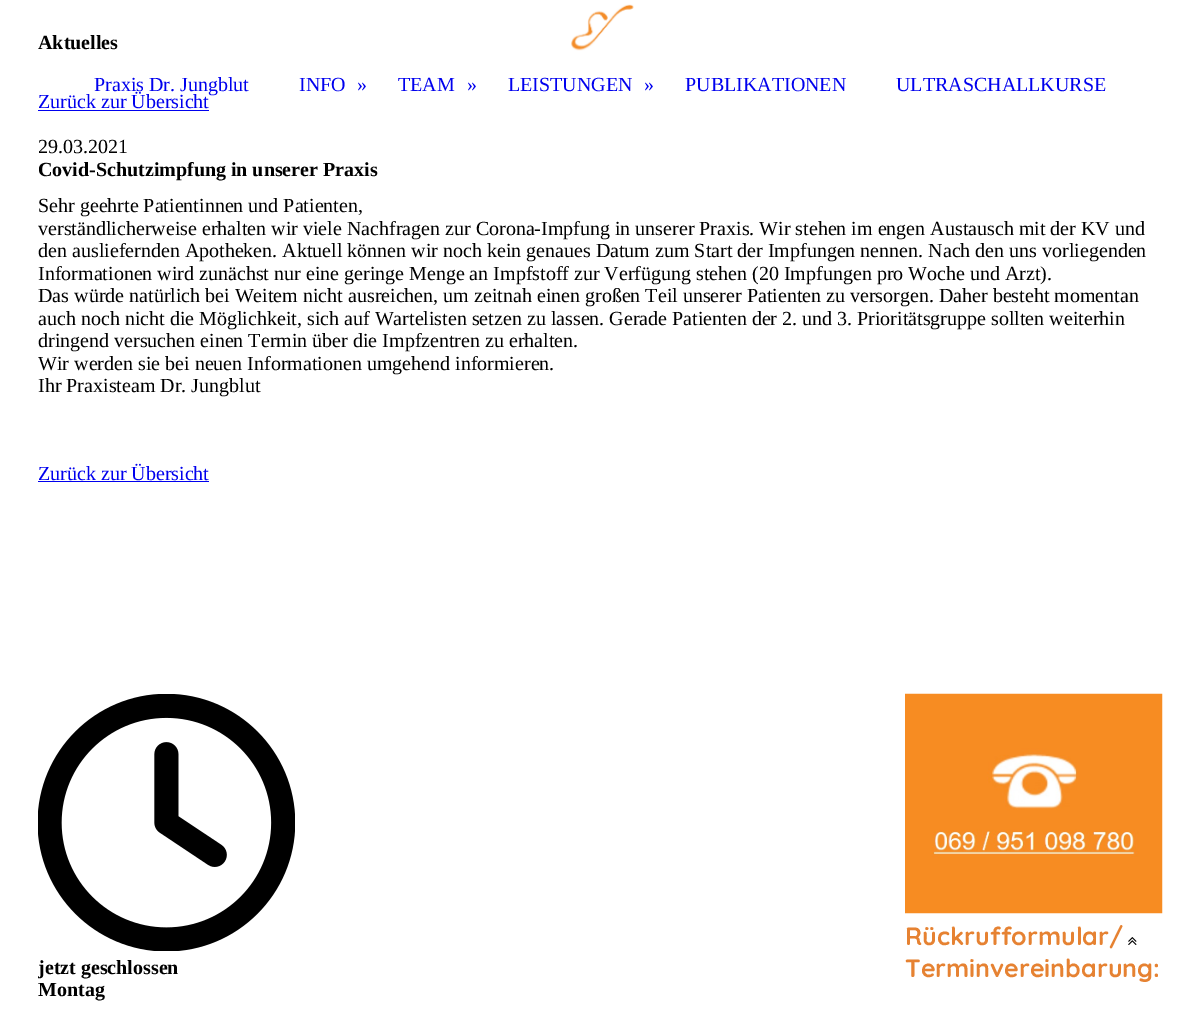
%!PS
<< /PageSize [1199 1013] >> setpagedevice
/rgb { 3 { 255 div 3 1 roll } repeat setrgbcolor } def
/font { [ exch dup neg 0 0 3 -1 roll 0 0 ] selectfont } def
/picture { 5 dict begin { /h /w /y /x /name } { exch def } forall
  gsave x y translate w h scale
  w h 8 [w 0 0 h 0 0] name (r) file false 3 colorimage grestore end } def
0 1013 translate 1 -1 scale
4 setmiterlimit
255 255 255 rgb
0 0 1199 1013 rectfill
0 0 238 rgb
38 110 171 1 rectfill
38 481 171 1 rectfill
(img/1.rgb) 38 694 257 257 picture
(img/2.rgb) 905 693 258 221 picture
(img/3.rgb) 571 4 63 47 picture
(img/4.rgb) 1128 937 9 8 picture
/LiberationSerif-Bold 20 font
0 0 0 rgb
38 49 moveto (Aktuelles) show
/LiberationSerif-Regular 20 font
0 0 238 rgb
38 108 moveto (Zurück zur Übersicht) show
0 0 0 rgb
38 153 moveto (29.03.2021) show
/LiberationSerif-Bold 20 font
38 176 moveto (Covid-Schutzimpfung in unserer Praxis) show
/LiberationSerif-Regular 20 font
[
  [(Sehr geehrte Patientinnen und Patienten,) 38 212]
  [(verständlicherweise erhalten wir viele Nachfragen zur Corona-Impfung in unserer Praxis. Wir stehen im engen Austausch mit der KV und) 38 235]
  [(den ausliefernden Apotheken. Aktuell können wir noch kein genaues Datum zum Start der Impfungen nennen. Nach den uns vorliegenden) 38 257]
  [(Informationen wird zunächst nur eine geringe Menge an Impfstoff zur Verfügung stehen \(20 Impfungen pro Woche und Arzt\).) 38 280]
  [(Das würde natürlich bei Weitem nicht ausreichen, um zeitnah einen großen Teil unserer Patienten zu versorgen. Daher besteht momentan) 38 302]
  [(auch noch nicht die Möglichkeit, sich auf Wartelisten setzen zu lassen. Gerade Patienten der 2. und 3. Prioritätsgruppe sollten weiterhin) 38 325]
  [(dringend versuchen einen Termin über die Impfzentren zu erhalten.) 38 347]
  [(Wir werden sie bei neuen Informationen umgehend informieren.) 38 370]
  [(Ihr Praxisteam Dr. Jungblut) 38 392]
] { aload pop moveto show } forall
0 0 238 rgb
38 480 moveto (Zurück zur Übersicht) show
gsave
38 694 257 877 rectclip
/LiberationSerif-Bold 20 font
0 0 0 rgb
38 974 moveto (jetzt geschlossen) show
grestore
/LiberationSerif-Bold 20 font
0 0 0 rgb
38 996 moveto (Montag) show
/Quicksand-Bold 25 font
230 130 50 rgb
905 945 moveto (Rückrufformular/) show
905 977 moveto (Terminvereinbarung:) show
/LiberationSerif-Regular 20 font
0 0 238 rgb
[
  [(Praxis Dr. Jungblut) 94 91]
  [(INFO) 299 91]
  [(») 357 91]
  [(TEAM) 398 91]
  [(») 467 91]
  [(LEISTUNGEN) 508 91]
  [(») 644 91]
  [(PUBLIKATIONEN) 685 91]
  [(ULTRASCHALLKURSE) 896 91]
] { aload pop moveto show } forall
showpage
